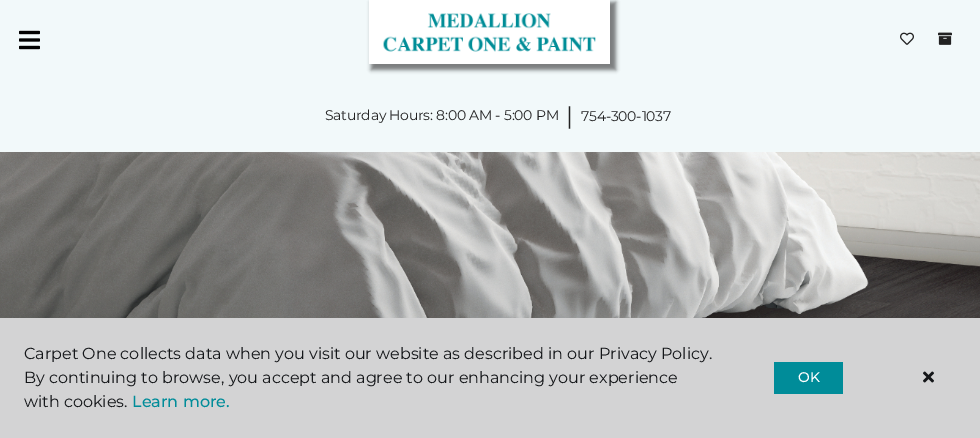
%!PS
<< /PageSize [980 438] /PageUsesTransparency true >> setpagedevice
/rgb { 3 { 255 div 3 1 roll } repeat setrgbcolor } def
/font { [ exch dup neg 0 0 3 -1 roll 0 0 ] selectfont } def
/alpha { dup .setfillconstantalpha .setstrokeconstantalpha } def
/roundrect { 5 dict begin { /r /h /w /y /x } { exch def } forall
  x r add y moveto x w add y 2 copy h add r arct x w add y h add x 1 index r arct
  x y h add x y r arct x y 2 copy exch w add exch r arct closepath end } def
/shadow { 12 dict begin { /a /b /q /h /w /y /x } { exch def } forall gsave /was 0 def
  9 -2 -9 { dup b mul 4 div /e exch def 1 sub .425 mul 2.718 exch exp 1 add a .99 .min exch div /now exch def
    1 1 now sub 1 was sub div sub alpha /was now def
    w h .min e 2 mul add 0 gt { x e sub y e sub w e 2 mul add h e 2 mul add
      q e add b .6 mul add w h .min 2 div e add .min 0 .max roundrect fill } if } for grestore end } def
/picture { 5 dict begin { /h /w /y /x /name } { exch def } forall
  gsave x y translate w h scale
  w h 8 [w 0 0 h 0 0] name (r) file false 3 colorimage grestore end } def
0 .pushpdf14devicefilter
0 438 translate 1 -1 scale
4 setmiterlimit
242 249 250 rgb
0 0 980 438 rectfill
(img/1.rgb) 19 30 21 20 picture
0 0 0 rgb
371 2 245 68 0 2 0.5 shadow
255 255 255 rgb
369 0 241 64 rectfill
(img/2.rgb) 383 13 213 39 picture
(img/3.rgb) 900 32 14 13 picture
(img/4.rgb) 938 32 14 13 picture
(img/5.rgb) 0 152 980 166 picture
211 211 212 rgb
0 318 980 120 rectfill
0 140 153 rgb
774 362 69 32 rectfill
(img/6.rgb) 923 371 11 12 picture
/Montserrat-Regular 14 font
34 34 34 rgb
325 120 moveto -0.25 0 (Saturday Hours: 8:00 AM - 5:00 PM) ashow
/Montserrat-Regular 24 font
566 124 moveto -0.25 0 (|) ashow
/Montserrat-Regular 14 font
581 121 moveto -0.25 0 (754-300-1037) ashow
/Montserrat-Regular 16 font
20 22 25 rgb
[
  [(Carpet One collects data when you visit our website as described in our Privacy Policy.) 24 359]
  [(By continuing to browse, you accept and agree to our enhancing your experience) 24 383]
  [(with cookies.) 24 407]
] { aload pop moveto show } forall
/Montserrat-Medium 16 font
0 140 153 rgb
132 407 moveto (Learn more.) show
/Montserrat-Medium 14 font
255 255 255 rgb
798 382 moveto -0.25 0 (OK) ashow
.poppdf14devicefilter showpage
